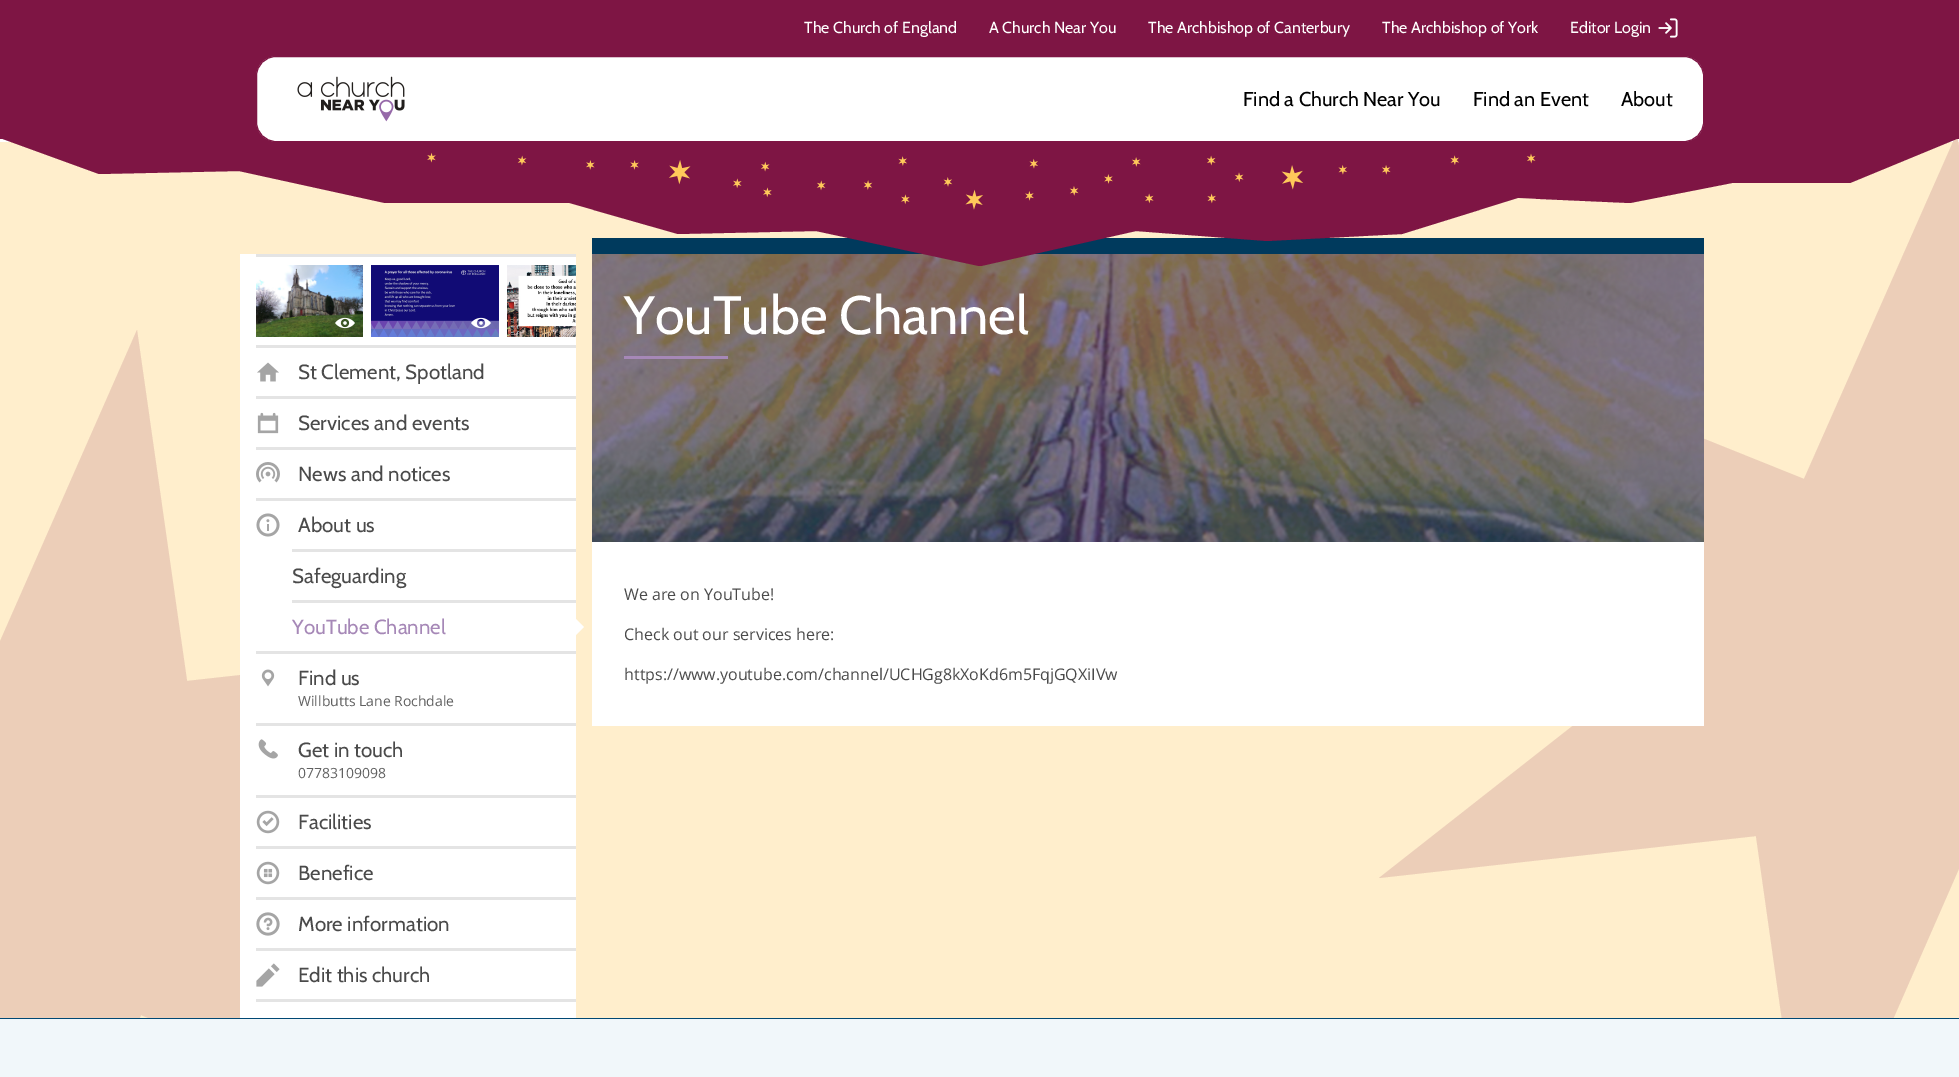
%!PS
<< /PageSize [1959 1077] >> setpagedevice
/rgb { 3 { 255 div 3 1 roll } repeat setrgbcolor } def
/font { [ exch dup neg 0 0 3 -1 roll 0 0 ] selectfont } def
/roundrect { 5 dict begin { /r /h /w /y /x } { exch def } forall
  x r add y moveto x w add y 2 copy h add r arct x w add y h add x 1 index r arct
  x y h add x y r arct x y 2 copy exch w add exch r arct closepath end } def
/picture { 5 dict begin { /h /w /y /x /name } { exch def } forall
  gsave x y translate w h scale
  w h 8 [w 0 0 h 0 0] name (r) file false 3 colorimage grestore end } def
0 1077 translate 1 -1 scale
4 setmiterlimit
255 238 204 rgb
0 0 1959 1077 rectfill
255 255 255 rgb
0 139 1959 3 rectfill
236 206 184 rgb
1809 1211 moveto 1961 864 lineto 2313 1005 lineto 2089 700 lineto 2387 466 lineto 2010 507 lineto 1957 133 lineto 1804 479 lineto 1453 338 lineto 1677 644 lineto 1379 878 lineto 1756 836 lineto closepath fill
-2 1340 moveto 141 1015 lineto 470 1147 lineto 261 861 lineto 540 642 lineto 187 681 lineto 137 330 lineto -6 655 lineto -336 522 lineto -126 809 lineto -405 1028 lineto -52 989 lineto closepath fill
255 255 255 rgb
240 254 336 764 rectfill
228 228 228 rgb
256 254 320 3 rectfill
(img/4.rgb) 256 265 107 72 picture
(img/6.rgb) 371 265 128 72 picture
(img/8.rgb) 507 265 69 72 picture
0 58 93 rgb
592 238 1112 16 rectfill
(img/19.rgb) 592 254 1112 288 picture
126 21 68 rgb
239 171 moveto 99 174 lineto 0 138 lineto 1959 138 lineto 1850 183 lineto 1732 183 lineto 1630 203 lineto 1518 198 lineto 1402 234 lineto 1267 241 lineto 1136 231 lineto 981 266 lineto 979 266 lineto 816 231 lineto 678 234 lineto 569 203 lineto 385 203 lineto closepath fill
0 0 1959 139 rectfill
(img/1.rgb) 1658 18 20 20 picture
255 255 255 rgb
256.5 56.5 1447 85 19.5 roundrect gsave fill grestore
126 21 68 rgb
stroke
(img/2.rgb) 297 76 108 46 picture
(img/3.rgb) 427 152 1109 58 picture
228 228 228 rgb
256 345 320 3 rectfill
(img/5.rgb) 335 317 20 12 picture
(img/7.rgb) 471 317 20 12 picture
(img/9.rgb) 257 362 22 20 picture
256 396 320 3 rectfill
(img/10.rgb) 257 412 22 22 picture
256 447 320 3 rectfill
(img/11.rgb) 256 462 24 21 picture
256 498 320 3 rectfill
(img/12.rgb) 256 513 24 24 picture
292 549 284 3 rectfill
292 600 284 3 rectfill
255 255 255 rgb
576 635 moveto 576 619 lineto 584 627 lineto closepath fill
228 228 228 rgb
256 651 320 3 rectfill
(img/13.rgb) 261 669 14 18 picture
256 723 320 3 rectfill
(img/14.rgb) 258 739 20 20 picture
256 795 320 3 rectfill
(img/15.rgb) 256 810 24 24 picture
256 846 320 3 rectfill
(img/16.rgb) 256 861 24 24 picture
256 897 320 3 rectfill
(img/17.rgb) 256 912 24 24 picture
256 948 320 3 rectfill
256 999 320 3 rectfill
(img/18.rgb) 256 963 24 24 picture
[
  [624 356 104 3 166 136 183]
  [592 542 1112 184 255 255 255]
  [0 1019 1959 58 241 247 250]
  [0 1018 1959 1 0 72 116]
] { aload pop rgb rectfill } forall
/Cabin-Regular 16 font
255 255 255 rgb
[
  [(The Church of England) 804 33]
  [(A Church Near You) 989 33]
  [(The Archbishop of Canterbury) 1148 33]
  [(The Archbishop of York) 1382 33]
  [(Editor Login) 1570 33]
] { aload pop moveto show } forall
/Cabin-Regular 20 font
0 0 0 rgb
[
  [(Find a Church Near You) 1243 106]
  [(Find an Event) 1473 106]
  [(About) 1621 106]
] { aload pop moveto show } forall
/Cabin-Regular 20.5 font
74 74 74 rgb
[
  [(St Clement, Spotland) 298 379]
  [(Services and events) 298 430]
  [(News and notices) 298 481]
  [(About us) 298 532]
  [(Safeguarding) 292 583]
] { aload pop moveto show } forall
166 136 183 rgb
292 634 moveto (YouTube Channel) show
74 74 74 rgb
298 685 moveto (Find us) show
/OpenSans-Regular 14 font
97 97 97 rgb
298 706 moveto (Willbutts Lane Rochdale) show
/Cabin-Regular 20.5 font
74 74 74 rgb
298 757 moveto (Get in touch) show
/OpenSans-Regular 14 font
97 97 97 rgb
298 778 moveto (07783109098) show
/Cabin-Regular 20.5 font
74 74 74 rgb
[
  [(Facilities) 298 829]
  [(Benefice) 298 880]
  [(More information) 298 931]
  [(Edit this church) 298 982]
] { aload pop moveto show } forall
/Cabin-Regular 54 font
255 255 255 rgb
624 334 moveto (YouTube Channel) show
/OpenSans-Regular 16 font
74 74 74 rgb
[
  [(We are on YouTube!) 624 600]
  [(Check out our services here:) 624 640]
  [(https://www.youtube.com/channel/UCHGg8kXoKd6m5FqjGQXiIVw) 624 680]
] { aload pop moveto show } forall
showpage
